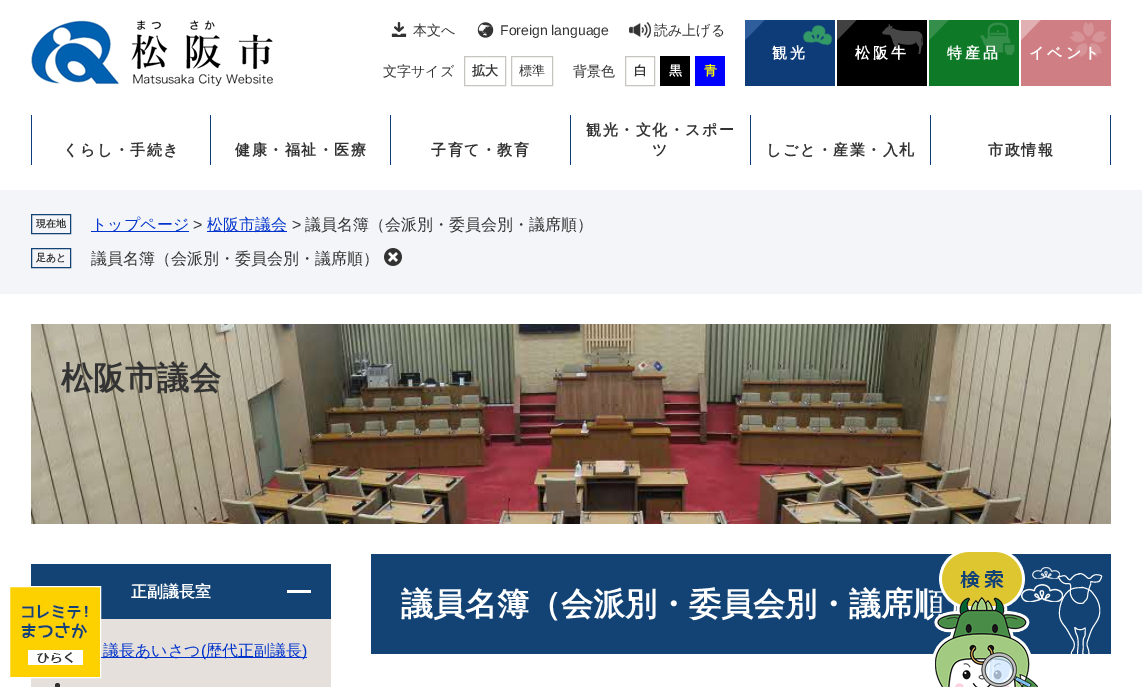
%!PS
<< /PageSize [1142 687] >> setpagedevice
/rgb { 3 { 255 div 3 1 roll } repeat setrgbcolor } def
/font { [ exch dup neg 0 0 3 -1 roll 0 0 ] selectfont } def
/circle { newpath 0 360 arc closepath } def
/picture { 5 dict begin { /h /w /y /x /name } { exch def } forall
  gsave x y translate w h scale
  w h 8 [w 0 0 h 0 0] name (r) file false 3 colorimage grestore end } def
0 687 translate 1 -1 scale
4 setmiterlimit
255 255 255 rgb
0 0 1142 687 rectfill
(img/1.rgb) 31 20 242 66 picture
(img/2.rgb) 391 22 16 15 picture
(img/3.rgb) 477 22 17 16 picture
(img/4.rgb) 629 22 22 16 picture
199 197 194 rgb
464.5 56.5 41 29 rectstroke
511.5 56.5 41 29 rectstroke
625.5 56.5 29 29 rectstroke
[
  [660 56 30 30 0 0 0]
  [695 56 30 30 0 0 255]
  [745 20 90 66 14 60 121]
] { aload pop rgb rectfill } forall
(img/5.rgb) 745 20 88 26 picture
0 0 0 rgb
837 20 90 66 rectfill
(img/6.rgb) 837 20 86 34 picture
14 121 39 rgb
929 20 90 66 rectfill
(img/7.rgb) 929 20 86 35 picture
207 127 132 rgb
1021 20 90 66 rectfill
(img/8.rgb) 1021 20 86 37 picture
[
  [210 115 1 50 14 60 121]
  [31 115 1 50 14 60 121]
  [390 115 1 50 14 60 121]
  [570 115 1 50 14 60 121]
  [750 115 1 50 14 60 121]
  [930 115 1 50 14 60 121]
  [1110 115 1 50 14 60 121]
  [31 619 300 68 229 224 219]
  [31 564 300 55 18 67 116]
  [10 587 90 90 253 208 0]
] { aload pop rgb rectfill } forall
(img/9.rgb) 28 650 55 15 picture
(img/10.rgb) 21 604 67 35 picture
255 255 255 rgb
9.5 586.5 91 91 rectstroke
243 245 248 rgb
0 190 1142 104 rectfill
18 67 116 rgb
31.5 214.5 39 19 rectstroke
0 51 204 rgb
91 231 98 1 rectfill
207 231 80 1 rectfill
18 67 116 rgb
31.5 248.5 39 19 rectstroke
(img/12.rgb) 384 248 18 18 picture
(img/13.rgb) 31 324 1080 200 picture
255 255 255 rgb
287 590 24 3 rectfill
0 51 204 rgb
101 657 206 1 rectfill
51 51 51 rgb
57.5 685.5 2.5 circle fill
18 67 116 rgb
371 554 740 100 rectfill
(img/14.rgb) 1021 567 82 87 picture
/WenQuanYiZenHei-Medium 14 font
51 51 51 rgb
413 35 moveto (本文へ) show
/LiberationSans-Regular 14 font
500 35 moveto (Foreign language) show
/WenQuanYiZenHei-Medium 14 font
654 35 moveto (読み上げる) show
383 76 moveto (文字サイズ) show
/WenQuanYiZenHei-Bold 13 font
472 75 moveto (拡大) show
/WenQuanYiZenHei-Medium 13 font
519 75 moveto (標準) show
/WenQuanYiZenHei-Medium 14 font
573 76 moveto (背景色) show
/WenQuanYiZenHei-Bold 13 font
634 75 moveto (白) show
255 255 255 rgb
669 75 moveto (黒) show
255 255 0 rgb
704 75 moveto (青) show
/WenQuanYiZenHei-Bold 15 font
255 255 255 rgb
772 58 moveto 3 0 (観光) ashow
855 58 moveto 3 0 (松阪牛) ashow
947 58 moveto 3 0 (特産品) ashow
1029 58 moveto 3 0 (イベント) ashow
51 51 51 rgb
63 155 moveto 1.5 0 (くらし・手続き) ashow
235 155 moveto 1.5 0 (健康・福祉・医療) ashow
431 155 moveto 1.5 0 (子育て・教育) ashow
586 135 moveto 1.5 0 (観光・文化・スポー) ashow
652 155 moveto 1.5 0 (ツ) ashow
766 155 moveto 1.5 0 (しごと・産業・入札) ashow
988 155 moveto 1.5 0 (市政情報) ashow
/WenQuanYiZenHei-Bold 10 font
36 227 moveto (現在地) show
/WenQuanYiZenHei-Medium 16 font
0 51 204 rgb
91 230 moveto (トップページ) show
/LiberationSans-Regular 16 font
51 51 51 rgb
193 230 moveto (>) show
/WenQuanYiZenHei-Medium 16 font
0 51 204 rgb
207 230 moveto (松阪市議会) show
/LiberationSans-Regular 16 font
51 51 51 rgb
292 230 moveto (>) show
/WenQuanYiZenHei-Medium 16 font
305 230 moveto (議員名簿（会派別・委員会別・議席順）) show
/WenQuanYiZenHei-Bold 10 font
36 261 moveto (足あと) show
/WenQuanYiZenHei-Medium 16 font
91 264 moveto (議員名簿（会派別・委員会別・議席順）) show
/WenQuanYiZenHei-Bold 32 font
61 389 moveto (松阪市議会) show
/WenQuanYiZenHei-Bold 16 font
255 255 255 rgb
131 597 moveto (正副議長室) show
/WenQuanYiZenHei-Medium 16 font
0 51 204 rgb
103 656 moveto (議長あいさつ) show
/LiberationSans-Regular 16 font
201 656 moveto (\() show
/WenQuanYiZenHei-Medium 16 font
206 656 moveto (歴代正副議長) show
/LiberationSans-Regular 16 font
302 656 moveto (\)) show
/WenQuanYiZenHei-Bold 32 font
255 255 255 rgb
401 615 moveto (議員名簿（会派別・委員会別・議席順) show
(img/11.rgb) 933 552 105 135 picture
showpage
